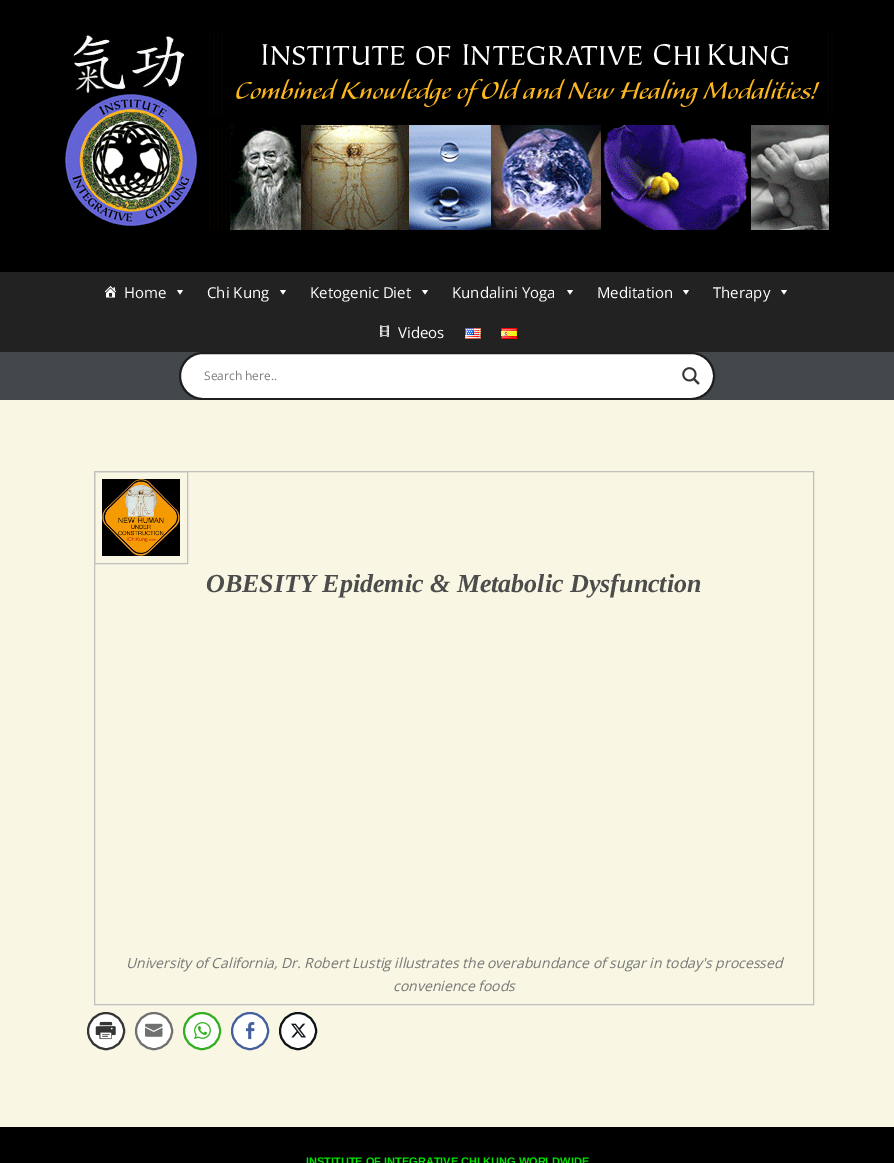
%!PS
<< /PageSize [894 1163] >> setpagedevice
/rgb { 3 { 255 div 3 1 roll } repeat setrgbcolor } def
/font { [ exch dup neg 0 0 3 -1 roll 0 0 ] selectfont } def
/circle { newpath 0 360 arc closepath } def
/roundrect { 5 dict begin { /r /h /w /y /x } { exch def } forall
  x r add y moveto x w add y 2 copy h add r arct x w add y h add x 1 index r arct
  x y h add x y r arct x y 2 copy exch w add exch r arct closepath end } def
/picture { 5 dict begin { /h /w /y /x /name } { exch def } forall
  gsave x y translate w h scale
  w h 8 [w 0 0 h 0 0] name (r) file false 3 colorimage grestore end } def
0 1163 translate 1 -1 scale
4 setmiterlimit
68 71 76 rgb
0 0 894 1163 rectfill
0 0 0 rgb
0 0 894 272 rectfill
(img/1.rgb) 65 33 768 198 picture
34 34 34 rgb
0 272 894 80 rectfill
(img/2.rgb) 104 286 13 12 picture
255 255 255 rgb
183 290 moveto 180 294.5 lineto 177 290 lineto closepath fill
286 290 moveto 283 294.5 lineto 280 290 lineto closepath fill
428 290 moveto 425 294.5 lineto 422 290 lineto closepath fill
573 290 moveto 570 294.5 lineto 567 290 lineto closepath fill
689 290 moveto 686 294.5 lineto 683 290 lineto closepath fill
787 290 moveto 784 294.5 lineto 781 290 lineto closepath fill
(img/3.rgb) 380 325 9 12 picture
(img/4.rgb) 465 328 16 11 picture
(img/5.rgb) 501 328 16 11 picture
180 353 534 46 23 roundrect gsave fill grestore
30 30 30 rgb
2 setlinewidth
stroke
(img/6.rgb) 682 367 18 18 picture
249 246 227 rgb
0 400 894 727 rectfill
192 192 192 rgb
1 setlinewidth
94.5 471.5 719 533 rectstroke
94.5 471.5 93 92 rectstroke
(img/7.rgb) 102 479 78 77 picture
255 255 255 rgb
106 1031 18 circle gsave fill grestore
53 53 53 rgb
2 setlinewidth
stroke
(img/8.rgb) 95 1021 21 19 picture
255 255 255 rgb
154 1031 18 circle gsave fill grestore
113 112 112 rgb
stroke
(img/9.rgb) 145 1023 18 14 picture
255 255 255 rgb
202 1031 18 circle gsave fill grestore
52 175 35 rgb
stroke
(img/10.rgb) 194 1022 17 17 picture
255 255 255 rgb
250 1031 18 circle gsave fill grestore
67 96 156 rgb
stroke
(img/11.rgb) 246 1022 9 18 picture
255 255 255 rgb
298 1031 18 circle gsave fill grestore
15 20 25 rgb
stroke
(img/12.rgb) 291 1023 15 15 picture
0 0 0 rgb
0 1127 894 36 rectfill
/OpenSans-Regular 15 font
255 255 255 rgb
[
  [(Home) 124 298]
  [(Chi Kung) 207 298]
  [(Ketogenic Diet) 310 298]
  [(Kundalini Yoga) 452 298]
  [(Meditation) 597 298]
  [(Therapy) 713 298]
  [(Videos) 398 338]
] { aload pop moveto show } forall
/OpenSans-Regular 12 font
125 125 125 rgb
204 380 moveto (Search here..) show
/LiberationSerif-BoldItalic 26 font
76 76 76 rgb
206 592 moveto (OBESITY Epidemic & Metabolic Dysfunction) show
/OpenSans-Italic 14 font
118 118 118 rgb
126 968 moveto (University of California, Dr. Robert Lustig illustrates the overabundance of sugar in today's processed) show
393 991 moveto (convenience foods) show
/LiberationSans-Bold 11 font
0 230 0 rgb
306 1165 moveto (INSTITUTE OF INTEGRATIVE CHI KUNG WORLDWIDE) show
showpage
